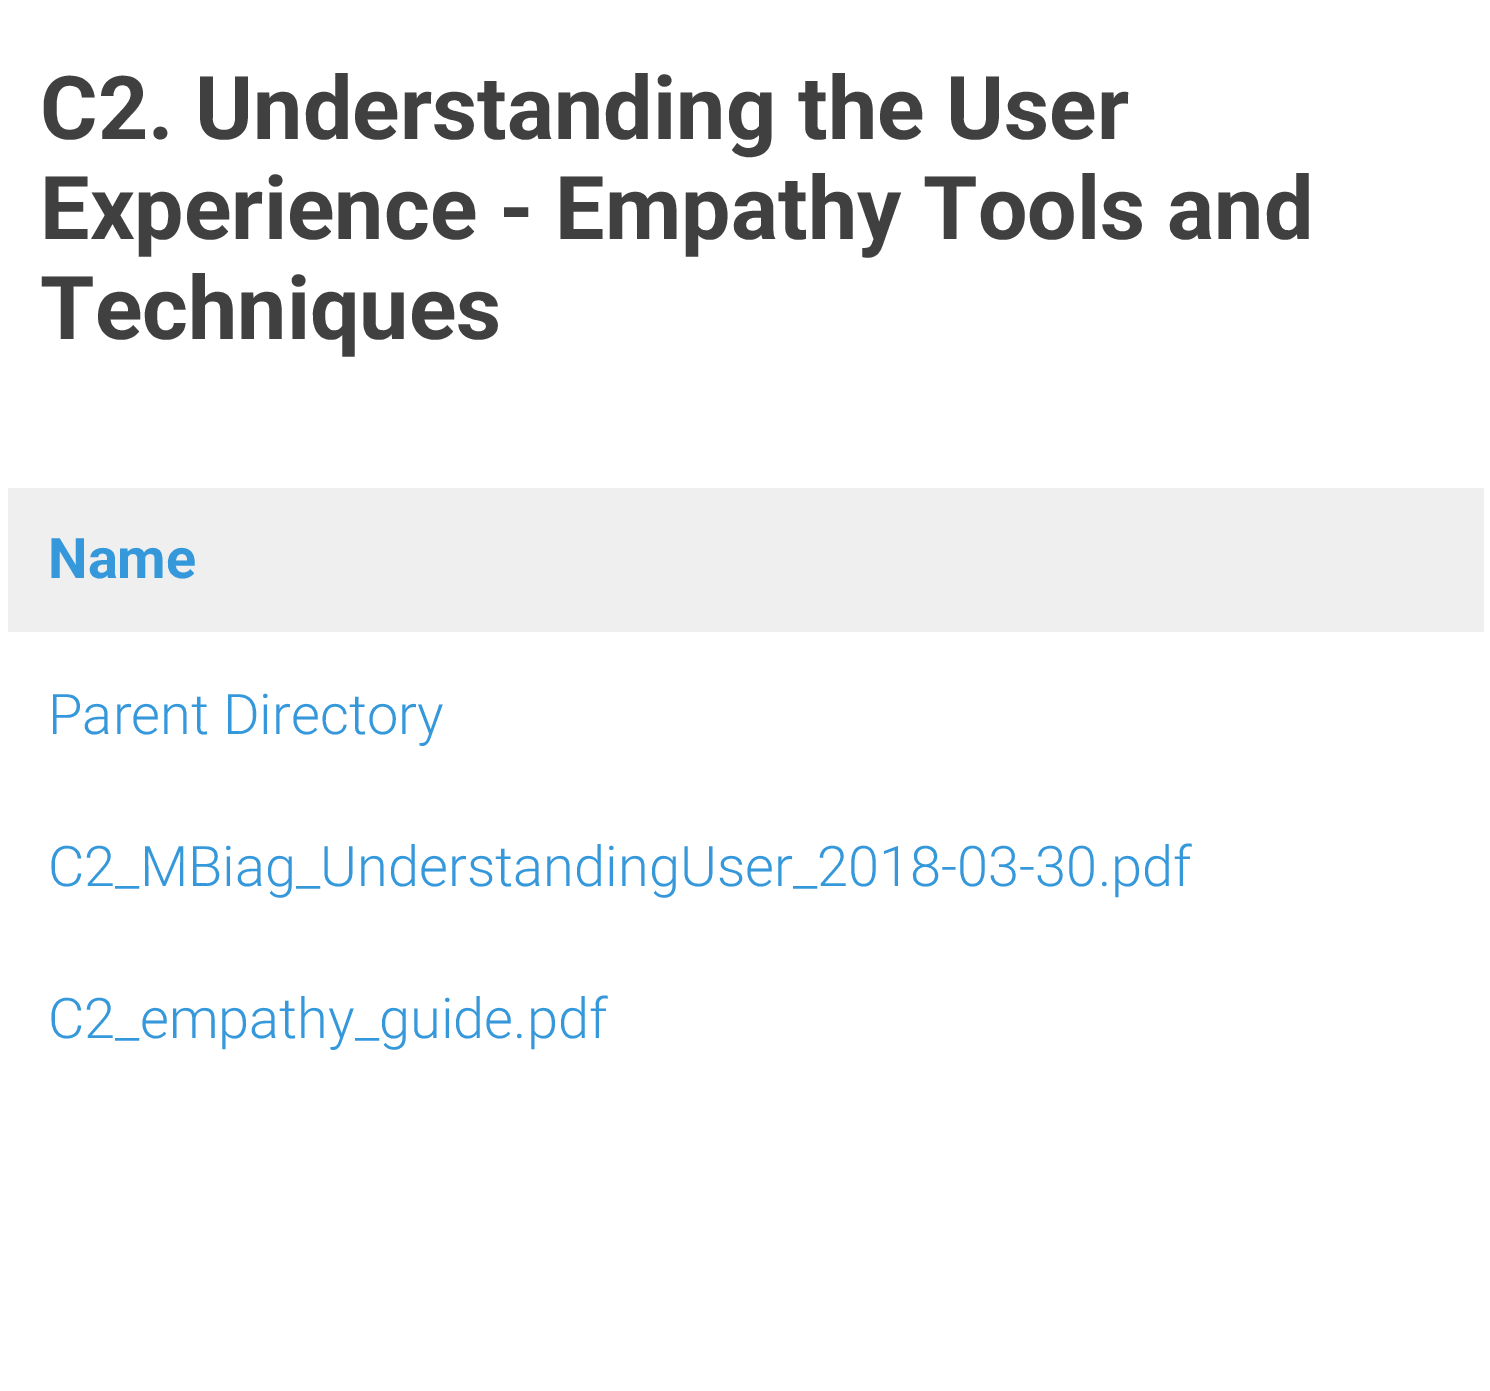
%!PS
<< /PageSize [1490 1391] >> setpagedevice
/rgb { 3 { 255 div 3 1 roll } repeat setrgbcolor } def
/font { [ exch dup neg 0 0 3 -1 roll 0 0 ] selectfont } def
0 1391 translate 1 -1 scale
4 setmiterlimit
255 255 255 rgb
0 0 1490 1391 rectfill
239 239 239 rgb
8 488 1476 144 rectfill
/Roboto-Bold 88 font
64 64 64 rgb
[
  [(C2. Understanding the User) 40 139]
  [(Experience - Empathy Tools and) 40 239]
  [(Techniques) 40 339]
] { aload pop moveto show } forall
/Roboto-Bold 56 font
52 152 219 rgb
48 578 moveto (Name) show
/Roboto-Light 56 font
[
  [(Parent Directory) 48 734]
  [(C2_MBiag_UnderstandingUser_2018-03-30.pdf) 48 886]
  [(C2_empathy_guide.pdf) 48 1038]
] { aload pop moveto show } forall
showpage
